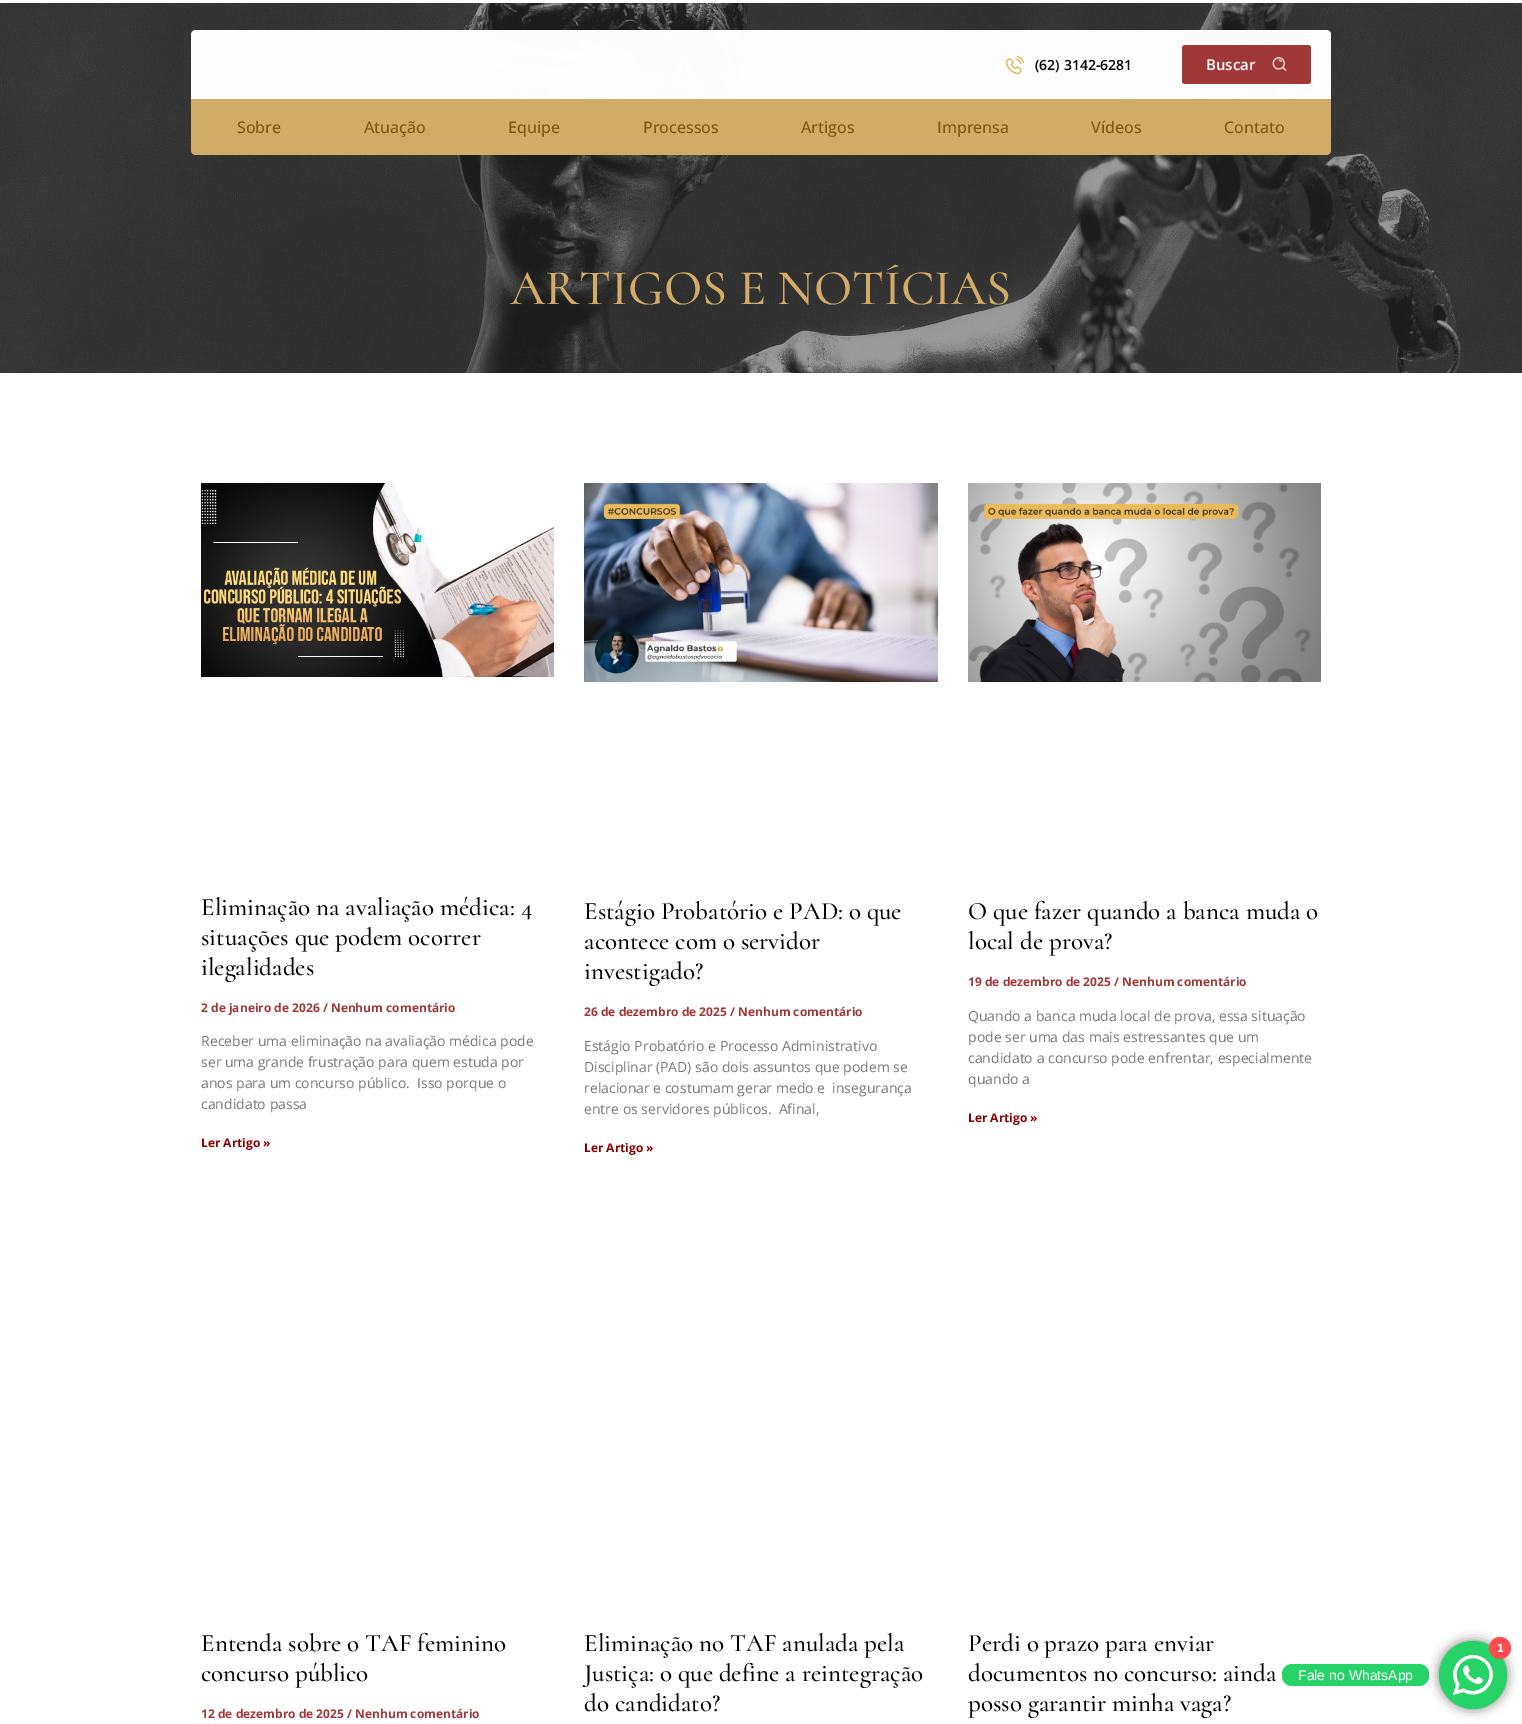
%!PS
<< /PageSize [1522 1724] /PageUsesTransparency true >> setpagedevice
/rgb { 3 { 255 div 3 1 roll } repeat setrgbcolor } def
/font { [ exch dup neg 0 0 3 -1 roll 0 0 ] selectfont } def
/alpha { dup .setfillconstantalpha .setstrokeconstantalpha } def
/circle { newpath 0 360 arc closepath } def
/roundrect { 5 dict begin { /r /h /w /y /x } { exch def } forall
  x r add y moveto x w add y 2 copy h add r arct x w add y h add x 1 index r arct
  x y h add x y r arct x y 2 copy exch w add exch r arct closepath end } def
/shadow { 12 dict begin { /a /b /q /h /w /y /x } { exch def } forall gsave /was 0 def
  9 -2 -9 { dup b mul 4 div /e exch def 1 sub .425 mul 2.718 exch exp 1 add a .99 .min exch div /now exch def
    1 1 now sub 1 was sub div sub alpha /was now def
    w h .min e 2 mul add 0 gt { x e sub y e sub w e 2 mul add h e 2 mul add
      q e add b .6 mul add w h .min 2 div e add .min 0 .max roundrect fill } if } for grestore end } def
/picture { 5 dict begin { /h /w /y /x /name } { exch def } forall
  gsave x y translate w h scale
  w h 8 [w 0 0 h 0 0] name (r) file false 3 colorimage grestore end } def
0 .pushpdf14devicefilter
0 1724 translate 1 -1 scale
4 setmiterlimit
255 255 255 rgb
0 0 1522 1724 rectfill
(img/3.rgb) 0 3 1522 370 picture
0.99 alpha
196 30 moveto 1326 30 lineto 1329 30 1331 32 1331 35 curveto 1331 99 lineto 191 99 lineto 191 35 lineto 191 32 193 30 196 30 curveto closepath fill
1 alpha
(img/1.rgb) 1005 55 20 20 picture
161 56 56 rgb
1182 45 129 39 3 roundrect fill
(img/2.rgb) 1272 57 15 14 picture
210 172 103 rgb
191 99 moveto 1331 99 lineto 1331 150 lineto 1331 153 1329 155 1326 155 curveto 196 155 lineto 193 155 191 153 191 150 curveto closepath fill
(img/4.rgb) 201 483 353 194 picture
(img/5.rgb) 584 483 354 199 picture
(img/6.rgb) 968 483 353 199 picture
37 211 102 rgb
1282 1664 147 22 10 roundrect fill
0 0 0 rgb
1439 1641 68 68 34 5.5 0.5 shadow
37 211 102 rgb
1473 1675 34 circle fill
(img/7.rgb) 1453 1655 40 40 picture
255 76 76 rgb
1500 1648 11 circle fill
/OpenSans-SemiBold 14 font
0 0 0 rgb
1035 70 moveto (\(62\) 3142-6281) show
/OpenSans-SemiBold 15 font
255 255 255 rgb
1206 70 moveto (Buscar) show
/OpenSans-Medium 16 font
126 88 22 rgb
[
  [(Sobre) 237 133]
  [(Atuação) 364 133]
  [(Equipe) 508 133]
  [(Processos) 643 133]
  [(Artigos) 801 133]
  [(Imprensa) 937 133]
  [(Vídeos) 1091 133]
  [(Contato) 1224 133]
] { aload pop moveto show } forall
/Cormorant-Medium 50 font
210 172 103 rgb
510 304 moveto (ARTIGOS E NOTÍCIAS) show
/Cormorant-Medium 25 font
0 0 0 rgb
[
  [(Eliminação na avaliação médica: 4) 201 915]
  [(situações que podem ocorrer) 201 945]
  [(ilegalidades) 201 975]
] { aload pop moveto show } forall
/OpenSans-Bold 12 font
161 56 56 rgb
201 1012 moveto (2 de janeiro de 2026 / Nenhum comentário) show
/OpenSans-Regular 14 font
119 119 119 rgb
[
  [(Receber uma eliminação na avaliação médica pode) 201 1046]
  [(ser uma grande frustração para quem estuda por) 201 1067]
  [(anos para um concurso público.  Isso porque o) 201 1088]
  [(candidato passa) 201 1109]
] { aload pop moveto show } forall
/OpenSans-Bold 12 font
135 0 0 rgb
201 1147 moveto (Ler Artigo ») show
/Cormorant-Medium 25 font
0 0 0 rgb
[
  [(Estágio Probatório e PAD: o que) 584 919]
  [(acontece com o servidor) 584 949]
  [(investigado?) 584 979]
] { aload pop moveto show } forall
/OpenSans-Bold 12 font
161 56 56 rgb
584 1016 moveto (26 de dezembro de 2025 / Nenhum comentário) show
/OpenSans-Regular 14 font
119 119 119 rgb
[
  [(Estágio Probatório e Processo Administrativo) 584 1051]
  [(Disciplinar \(PAD\) são dois assuntos que podem se) 584 1072]
  [(relacionar e costumam gerar medo e  insegurança) 584 1093]
  [(entre os servidores públicos.  Afinal,) 584 1114]
] { aload pop moveto show } forall
/OpenSans-Bold 12 font
135 0 0 rgb
584 1152 moveto (Ler Artigo ») show
/Cormorant-Medium 25 font
0 0 0 rgb
968 919 moveto (O que fazer quando a banca muda o) show
968 949 moveto (local de prova?) show
/OpenSans-Bold 12 font
161 56 56 rgb
968 986 moveto (19 de dezembro de 2025 / Nenhum comentário) show
/OpenSans-Regular 14 font
119 119 119 rgb
[
  [(Quando a banca muda local de prova, essa situação) 968 1021]
  [(pode ser uma das mais estressantes que um) 968 1042]
  [(candidato a concurso pode enfrentar, especialmente) 968 1063]
  [(quando a) 968 1084]
] { aload pop moveto show } forall
/OpenSans-Bold 12 font
135 0 0 rgb
968 1122 moveto (Ler Artigo ») show
/Cormorant-Medium 25 font
0 0 0 rgb
201 1651 moveto (Entenda sobre o TAF feminino) show
201 1681 moveto (concurso público) show
/OpenSans-Bold 12 font
161 56 56 rgb
201 1718 moveto (12 de dezembro de 2025 / Nenhum comentário) show
/Cormorant-Medium 25 font
0 0 0 rgb
[
  [(Eliminação no TAF anulada pela) 584 1651]
  [(Justiça: o que define a reintegração) 584 1681]
  [(do candidato?) 584 1711]
  [(Perdi o prazo para enviar) 968 1651]
  [(documentos no concurso: ainda) 968 1681]
  [(posso garantir minha vaga?) 968 1711]
] { aload pop moveto show } forall
/LiberationSans-Bold 12 font
255 255 255 rgb
1497 1652 moveto (1) show
/LiberationSans-Regular 14 font
1298 1680 moveto (Fale no WhatsApp) show
.poppdf14devicefilter showpage
